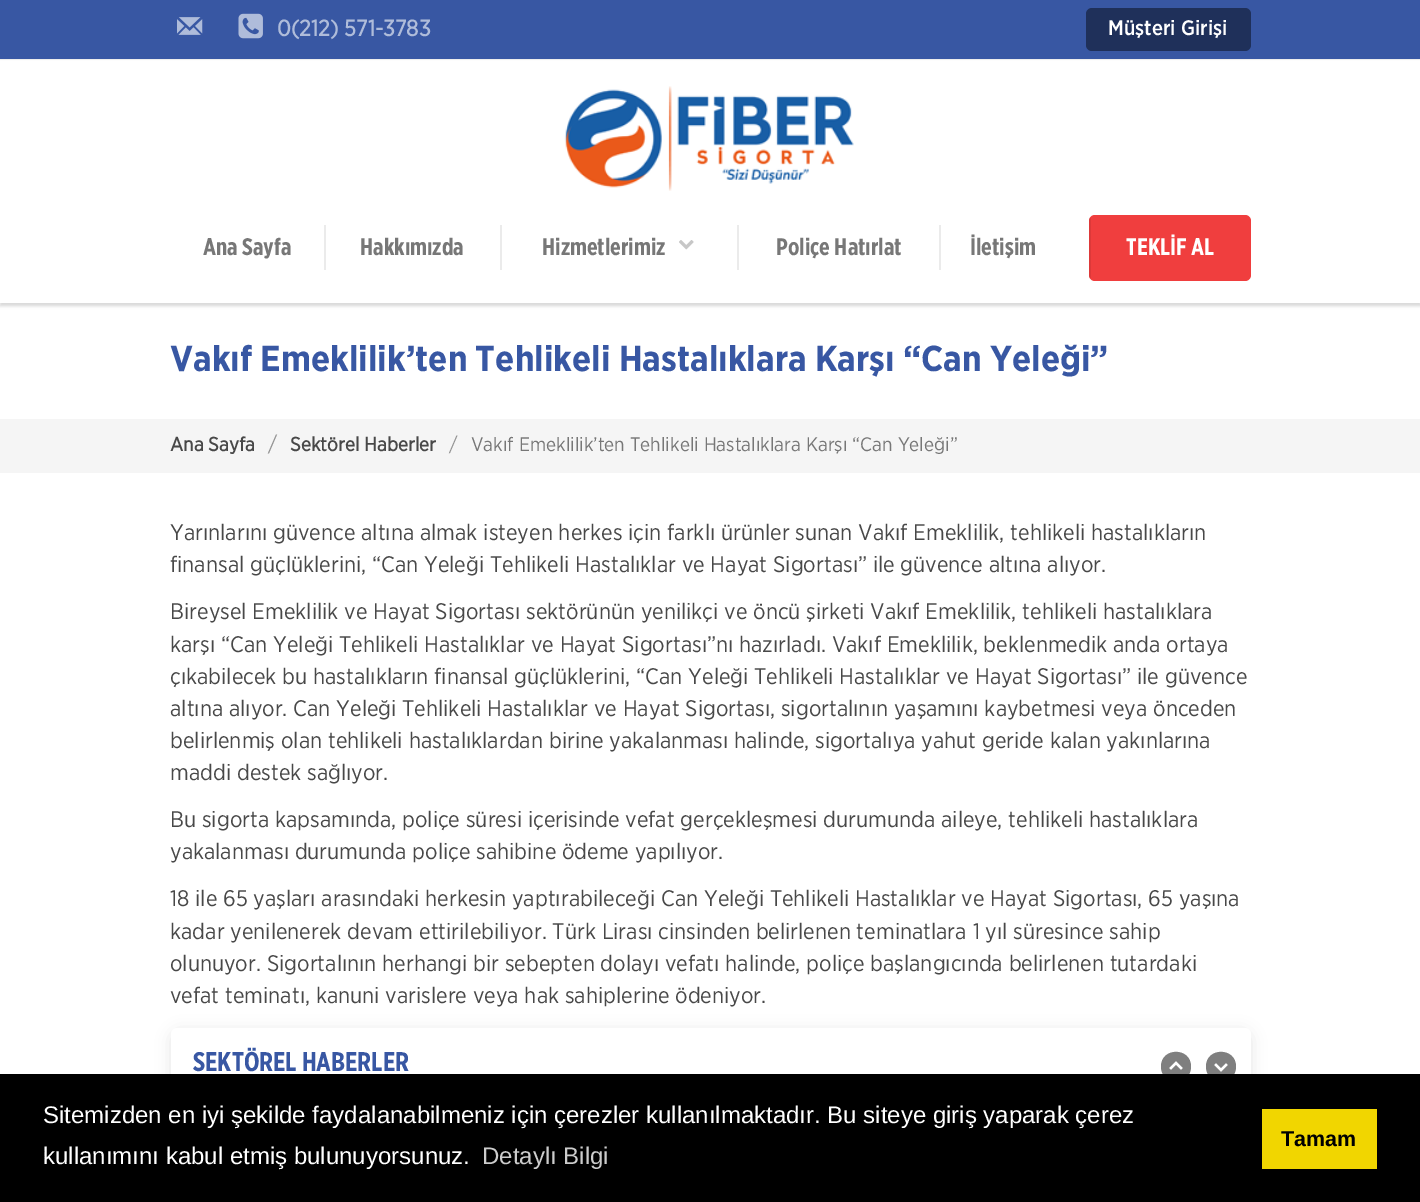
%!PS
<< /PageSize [1420 1202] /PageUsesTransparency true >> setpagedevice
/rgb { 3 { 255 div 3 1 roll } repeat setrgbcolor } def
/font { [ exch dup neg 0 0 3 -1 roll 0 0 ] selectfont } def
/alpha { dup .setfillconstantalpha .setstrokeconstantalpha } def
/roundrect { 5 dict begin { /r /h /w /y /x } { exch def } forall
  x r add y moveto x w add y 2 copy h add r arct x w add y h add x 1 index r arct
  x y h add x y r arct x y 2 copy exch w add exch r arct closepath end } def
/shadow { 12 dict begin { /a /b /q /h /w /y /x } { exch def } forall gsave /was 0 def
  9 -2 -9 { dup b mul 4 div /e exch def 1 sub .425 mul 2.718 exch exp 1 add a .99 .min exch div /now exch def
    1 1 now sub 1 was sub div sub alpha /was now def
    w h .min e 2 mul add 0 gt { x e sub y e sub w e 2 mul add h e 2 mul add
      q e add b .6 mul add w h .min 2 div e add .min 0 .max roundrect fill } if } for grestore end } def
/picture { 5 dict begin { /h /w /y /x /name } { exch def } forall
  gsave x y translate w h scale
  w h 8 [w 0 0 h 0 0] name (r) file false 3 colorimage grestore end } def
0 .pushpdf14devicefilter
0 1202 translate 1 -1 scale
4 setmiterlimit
255 255 255 rgb
0 0 1420 1202 rectfill
56 87 163 rgb
0 0 1420 59 rectfill
238 238 238 rgb
0 59 1420 1 rectfill
(img/1.rgb) 177 17 26 18 picture
(img/2.rgb) 238 13 25 26 picture
31 48 90 rgb
1086 8 165 43 6 roundrect fill
0 0 0 rgb
0 63 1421 243 0 1.5 0.15 shadow
255 255 255 rgb
0 61 1420 242 rectfill
(img/3.rgb) 564 86 290 105 picture
235 235 235 rgb
324 225 2 45 rectfill
500 225 2 45 rectfill
(img/4.rgb) 679 240 15 10 picture
737 225 2 45 rectfill
939 225 2 45 rectfill
240 62 62 rgb
1089 215 162 66 6 roundrect fill
0.08 alpha
0 0 0 rgb
1089 218 2 60 rectfill
1 alpha
245 245 245 rgb
0 419 1420 54 rectfill
0 0 0 rgb
171 1031 1080 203 9 7.5 0.1 shadow
255 255 255 rgb
177 1028 moveto 1245 1028 lineto 1248.5 1028 1251 1030.5 1251 1034 curveto 1251 1101 lineto 171 1101 lineto 171 1034 lineto 171 1030.5 173.5 1028 177 1028 curveto closepath fill
127 127 127 rgb
1191 1066.5 moveto 1191 1086.5 1161 1086.5 1161 1066.5 curveto 1161 1047 1191 1047 1191 1066.5 curveto closepath 1181 1070 moveto 1183 1068 lineto 1176 1061 lineto 1169 1068 lineto 1171 1070 lineto 1176 1065 lineto closepath fill
1236 1066.5 moveto 1236 1086.5 1206 1086.5 1206 1066.5 curveto 1206 1047 1236 1047 1236 1066.5 curveto closepath 1221 1072 moveto 1228 1065 lineto 1226 1063 lineto 1221 1068 lineto 1216 1063 lineto 1214 1065 lineto closepath fill
0 0 0 rgb
0 1074 1420 128 rectfill
241 214 0 rgb
1262 1109 115 60 rectfill
/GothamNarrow-Bold 22.5 font
175 188 218 rgb
277 36 moveto (0\(212\) 571-3783) show
/GothamNarrow-Medium 21 font
255 255 255 rgb
1108 35 moveto (Müşteri Girişi) show
/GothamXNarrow-Bold 24 font
119 119 119 rgb
[
  [(Ana Sayfa) 203 255]
  [(Hakkımızda) 360 255]
  [(Hizmetlerimiz) 542 255]
  [(Poliçe Hatırlat) 776 255]
  [(İletişim) 970 255]
] { aload pop moveto show } forall
255 255 255 rgb
1126 255 moveto (TEKLİF AL) show
/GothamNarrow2-Bold 36 font
56 87 163 rgb
170 371 moveto (Vakıf Emeklilik’ten Tehlikeli Hastalıklara Karşı “Can Yeleği”) show
/GothamNarrow-Bold 19.5 font
72 72 72 rgb
170 451 moveto (Ana Sayfa) show
/GothamNarrow-Regular 21 font
147 147 147 rgb
268 451 moveto (/) show
/GothamNarrow-Bold 19.5 font
72 72 72 rgb
290 451 moveto (Sektörel Haberler) show
/GothamNarrow-Regular 19.5 font
147 147 147 rgb
449 451 moveto (/) show
119 119 119 rgb
471 451 moveto (Vakıf Emeklilik’ten Tehlikeli Hastalıklara Karşı “Can Yeleği”) show
/GothamNarrow-Regular 22.5 font
72 72 72 rgb
[
  [(Yarınlarını güvence altına almak isteyen herkes için farklı ürünler sunan Vakıf Emeklilik, tehlikeli hastalıkların) 170 540]
  [(finansal güçlüklerini, “Can Yeleği Tehlikeli Hastalıklar ve Hayat Sigortası” ile güvence altına alıyor.) 170 572]
  [(Bireysel Emeklilik ve Hayat Sigortası sektörünün yenilikçi ve öncü şirketi Vakıf Emeklilik, tehlikeli hastalıklara) 170 619]
  [(karşı “Can Yeleği Tehlikeli Hastalıklar ve Hayat Sigortası”nı hazırladı. Vakıf Emeklilik, beklenmedik anda ortaya) 170 652]
  [(çıkabilecek bu hastalıkların finansal güçlüklerini, “Can Yeleği Tehlikeli Hastalıklar ve Hayat Sigortası” ile güvence) 170 684]
  [(altına alıyor. Can Yeleği Tehlikeli Hastalıklar ve Hayat Sigortası, sigortalının yaşamını kaybetmesi veya önceden) 170 716]
  [(belirlenmiş olan tehlikeli hastalıklardan birine yakalanması halinde, sigortalıya yahut geride kalan yakınlarına) 170 748]
  [(maddi destek sağlıyor.) 170 780]
  [(Bu sigorta kapsamında, poliçe süresi içerisinde vefat gerçekleşmesi durumunda aileye, tehlikeli hastalıklara) 170 827]
  [(yakalanması durumunda poliçe sahibine ödeme yapılıyor.) 170 859]
  [(18 ile 65 yaşları arasındaki herkesin yaptırabileceği Can Yeleği Tehlikeli Hastalıklar ve Hayat Sigortası, 65 yaşına) 170 906]
  [(kadar yenilenerek devam ettirilebiliyor. Türk Lirası cinsinden belirlenen teminatlara 1 yıl süresince sahip) 170 939]
  [(olunuyor. Sigortalının herhangi bir sebepten dolayı vefatı halinde, poliçe başlangıcında belirlenen tutardaki) 170 971]
  [(vefat teminatı, kanuni varislere veya hak sahiplerine ödeniyor.) 170 1003]
] { aload pop moveto show } forall
/GothamXNarrow-Bold 27 font
56 87 163 rgb
193 1071 moveto (SEKTÖREL HABERLER) show
/LiberationSans-Regular 24 font
255 255 255 rgb
43 1123 moveto (Sitemizden en iyi şekilde faydalanabilmeniz için çerezler kullanılmaktadır. Bu siteye giriş yaparak çerez) show
43 1164 moveto (kullanımını kabul etmiş bulunuyorsunuz.) show
204 204 204 rgb
482 1164 moveto (Detaylı Bilgi) show
/LiberationSans-Bold 21.5 font
0 0 0 rgb
1281 1146 moveto (Tamam) show
.poppdf14devicefilter showpage
